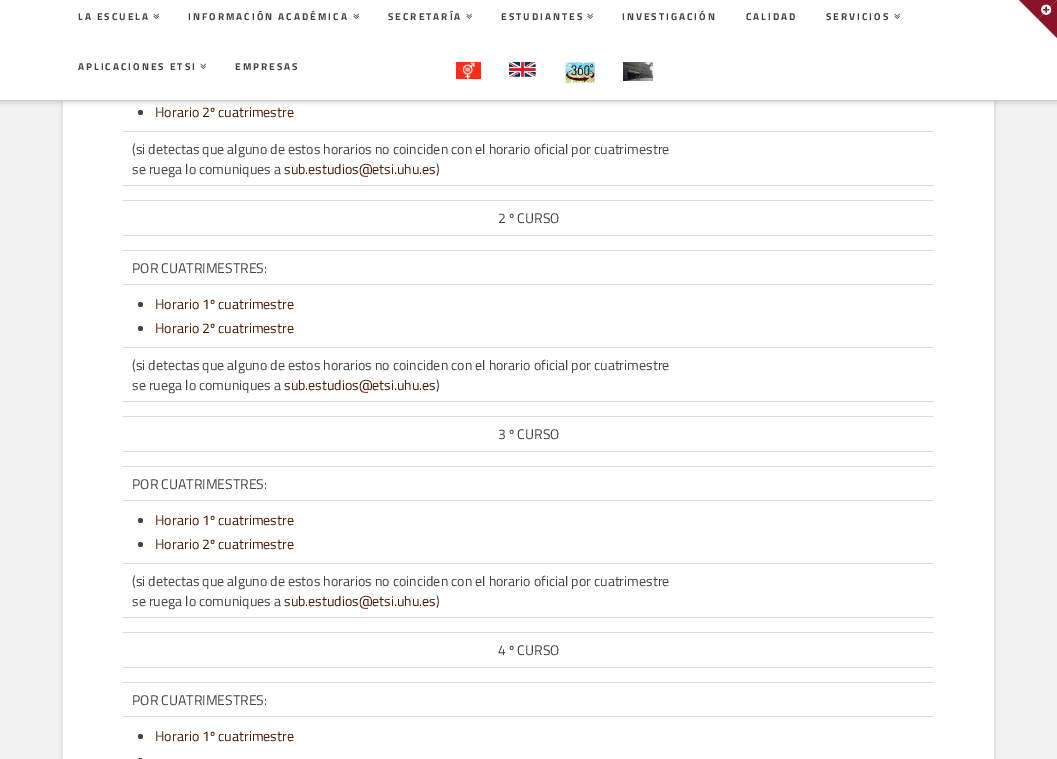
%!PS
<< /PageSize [1057 759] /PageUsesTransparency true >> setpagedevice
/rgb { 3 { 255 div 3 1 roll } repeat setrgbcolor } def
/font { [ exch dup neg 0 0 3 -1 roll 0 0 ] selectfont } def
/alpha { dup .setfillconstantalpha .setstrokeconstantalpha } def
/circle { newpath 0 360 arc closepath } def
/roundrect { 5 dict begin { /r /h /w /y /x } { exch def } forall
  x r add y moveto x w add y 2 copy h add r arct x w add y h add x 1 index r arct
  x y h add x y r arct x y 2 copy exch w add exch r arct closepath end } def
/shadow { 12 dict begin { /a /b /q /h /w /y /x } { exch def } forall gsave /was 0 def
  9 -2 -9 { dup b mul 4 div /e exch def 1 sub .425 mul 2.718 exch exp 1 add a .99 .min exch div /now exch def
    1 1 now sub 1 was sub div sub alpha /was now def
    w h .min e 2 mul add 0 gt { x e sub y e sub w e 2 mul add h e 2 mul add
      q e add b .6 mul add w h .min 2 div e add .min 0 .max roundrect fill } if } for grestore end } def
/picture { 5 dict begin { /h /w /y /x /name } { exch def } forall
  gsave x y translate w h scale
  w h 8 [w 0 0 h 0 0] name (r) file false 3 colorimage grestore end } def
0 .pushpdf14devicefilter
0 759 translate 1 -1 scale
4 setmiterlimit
242 242 242 rgb
0 0 1057 759 rectfill
0 0 0 rgb
63 -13 931 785 4 3 0.13 shadow
255 255 255 rgb
63 101 931 658 rectfill
0 0 0 rgb
0 2 1057 101 0 2 0.13 shadow
255 255 255 rgb
0 0 1057 100 rectfill
204 204 204 rgb
0 100 1057 1 rectfill
(img/1.rgb) 153 13 6 6 picture
(img/1.rgb) 353 13 6 6 picture
(img/1.rgb) 466 13 6 6 picture
(img/1.rgb) 587 13 6 6 picture
(img/1.rgb) 894 13 6 6 picture
(img/1.rgb) 200 63 6 6 picture
(img/2.rgb) 456 62 25 17 picture
(img/3.rgb) 509 62 27 15 picture
(img/4.rgb) 565 62 30 21 picture
(img/5.rgb) 623 62 30 19 picture
138 18 41 rgb
1019 0 moveto 1057 0 lineto 1038 19 lineto closepath fill
1057 0 moveto 1057 38 lineto 1038 19 lineto closepath fill
(img/6.rgb) 1041 4 11 11 picture
71 66 66 rgb
140.5 112.5 2.5 circle fill
[
  [123 131 811 1 221 221 221]
  [123 185 811 1 221 221 221]
  [123 200 811 1 221 221 221]
  [123 235 811 1 221 221 221]
  [123 250 811 1 221 221 221]
  [123 284 811 1 221 221 221]
] { aload pop rgb rectfill } forall
71 66 66 rgb
140.5 304.5 2.5 circle fill
140.5 328.5 2.5 circle fill
[
  [123 347 811 1 221 221 221]
  [123 401 811 1 221 221 221]
  [123 416 811 1 221 221 221]
  [123 451 811 1 221 221 221]
  [123 466 811 1 221 221 221]
  [123 500 811 1 221 221 221]
] { aload pop rgb rectfill } forall
71 66 66 rgb
140.5 520.5 2.5 circle fill
140.5 544.5 2.5 circle fill
[
  [123 563 811 1 221 221 221]
  [123 617 811 1 221 221 221]
  [123 632 811 1 221 221 221]
  [123 667 811 1 221 221 221]
  [123 682 811 1 221 221 221]
  [123 716 811 1 221 221 221]
] { aload pop rgb rectfill } forall
71 66 66 rgb
140.5 736.5 2.5 circle fill
138 758 5 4 2.5 roundrect fill
/TitilliumWeb-Bold 10 font
78 20 moveto 2 0 (LA ESCUELA) ashow
188 20 moveto 2 0 (INFORMACIÓN ACADÉMICA) ashow
388 20 moveto 2 0 (SECRETARÍA) ashow
501 20 moveto 2 0 (ESTUDIANTES) ashow
622 20 moveto 2 0 (INVESTIGACIÓN) ashow
746 20 moveto 2 0 (CALIDAD) ashow
826 20 moveto 2 0 (SERVICIOS) ashow
78 70 moveto 2 0 (APLICACIONES ETSI) ashow
235 70 moveto 2 0 (EMPRESAS) ashow
/TitilliumWeb-Regular 14 font
79 27 0 rgb
155 117 moveto (Horario 2º cuatrimestre) show
71 66 66 rgb
132 154 moveto (\(si detectas que alguno de estos horarios no coinciden con el horario oficial por cuatrimestre) show
132 174 moveto (se ruega lo comuniques a) show
79 27 0 rgb
284 174 moveto (sub.estudios@etsi.uhu.es) show
71 66 66 rgb
[
  [(\)) 436 174]
  [(2 º CURSO) 498 223]
  [(POR CUATRIMESTRES:) 132 273]
] { aload pop moveto show } forall
79 27 0 rgb
155 309 moveto (Horario 1º cuatrimestre) show
155 333 moveto (Horario 2º cuatrimestre) show
71 66 66 rgb
132 370 moveto (\(si detectas que alguno de estos horarios no coinciden con el horario oficial por cuatrimestre) show
132 390 moveto (se ruega lo comuniques a) show
79 27 0 rgb
284 390 moveto (sub.estudios@etsi.uhu.es) show
71 66 66 rgb
[
  [(\)) 436 390]
  [(3 º CURSO) 498 439]
  [(POR CUATRIMESTRES:) 132 489]
] { aload pop moveto show } forall
79 27 0 rgb
155 525 moveto (Horario 1º cuatrimestre) show
155 549 moveto (Horario 2º cuatrimestre) show
71 66 66 rgb
132 586 moveto (\(si detectas que alguno de estos horarios no coinciden con el horario oficial por cuatrimestre) show
132 606 moveto (se ruega lo comuniques a) show
79 27 0 rgb
284 606 moveto (sub.estudios@etsi.uhu.es) show
71 66 66 rgb
[
  [(\)) 436 606]
  [(4 º CURSO) 498 655]
  [(POR CUATRIMESTRES:) 132 705]
] { aload pop moveto show } forall
79 27 0 rgb
155 741 moveto (Horario 1º cuatrimestre) show
.poppdf14devicefilter showpage
